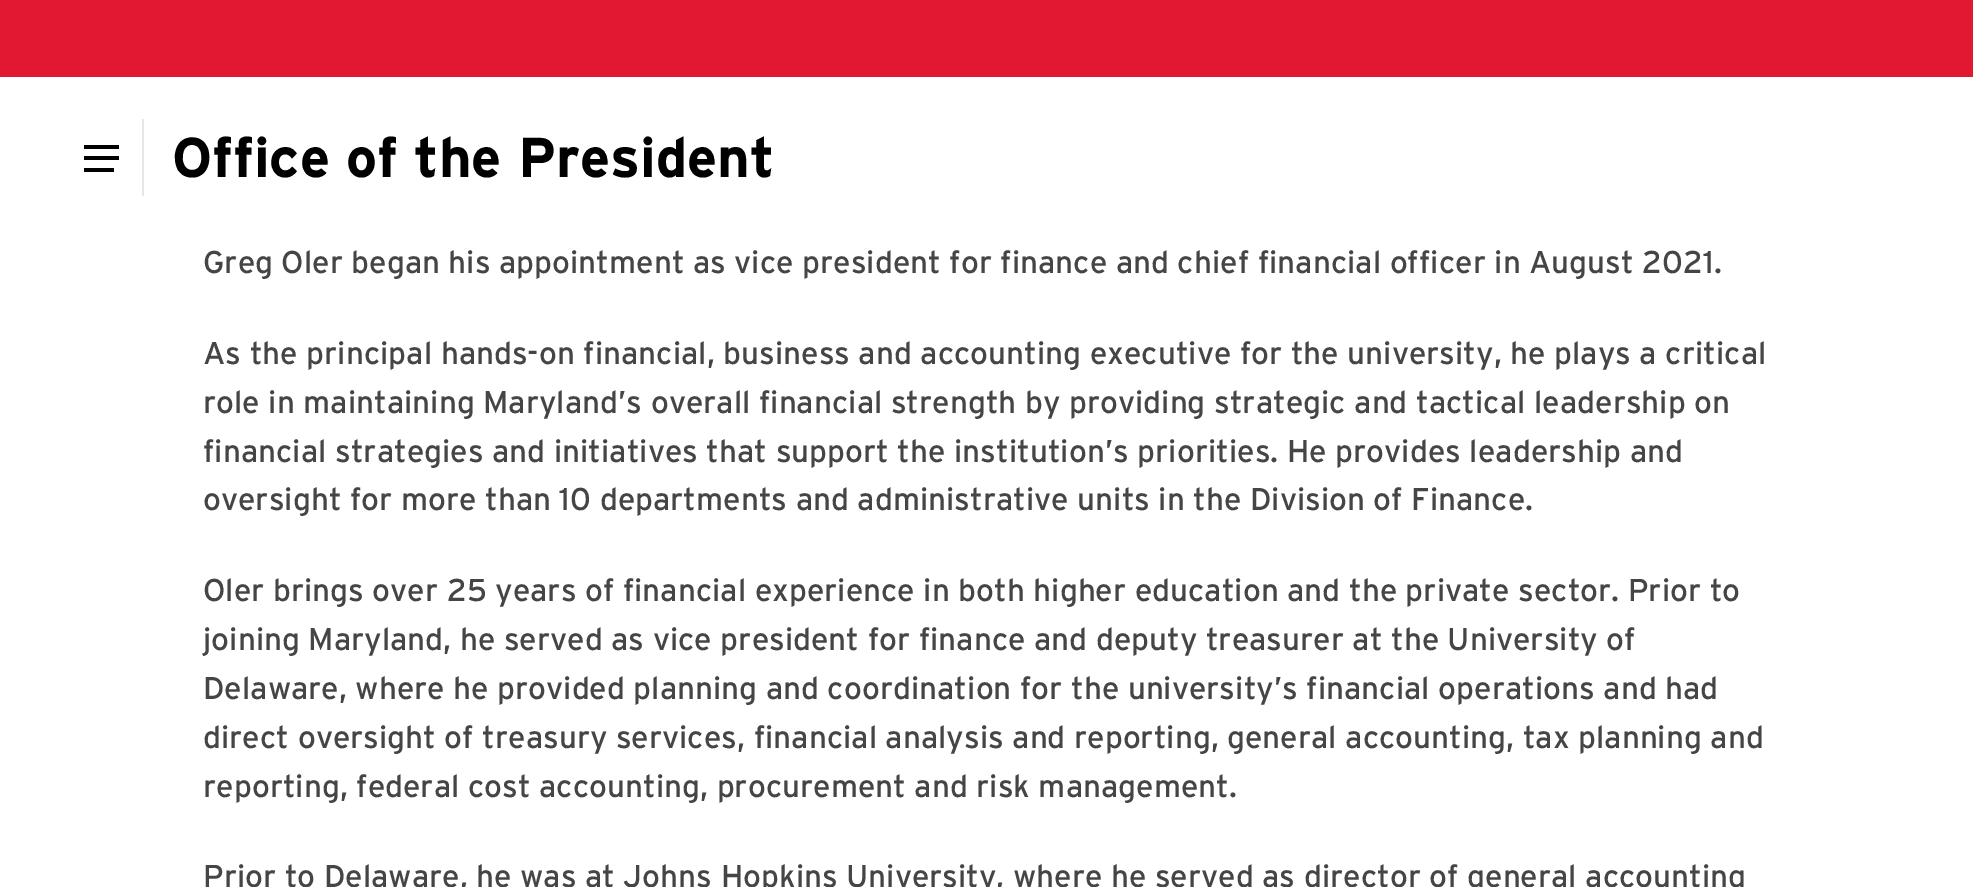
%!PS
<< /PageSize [1973 887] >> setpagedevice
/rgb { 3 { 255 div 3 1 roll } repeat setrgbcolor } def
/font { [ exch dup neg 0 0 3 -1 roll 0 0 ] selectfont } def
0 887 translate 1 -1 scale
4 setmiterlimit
255 255 255 rgb
0 0 1973 887 rectfill
[
  [0 0 1973 77 226 24 51]
  [142 119 2 77 230 230 230]
  [84 145 35 4 0 0 0]
  [84 156 35 4 0 0 0]
  [84 168 30 4 0 0 0]
] { aload pop rgb rectfill } forall
/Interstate-Bold 56 font
172 177 moveto (Office of the President) show
/Interstate-Regular 31.5 font
69 69 69 rgb
[
  [(Greg Oler began his appointment as vice president for finance and chief financial officer in August 2021.) 203 273]
  [(As the principal hands-on financial, business and accounting executive for the university, he plays a critical) 203 364]
  [(role in maintaining Maryland’s overall financial strength by providing strategic and tactical leadership on) 203 413]
  [(financial strategies and initiatives that support the institution’s priorities. He provides leadership and) 203 462]
  [(oversight for more than 10 departments and administrative units in the Division of Finance.) 203 510]
  [(Oler brings over 25 years of financial experience in both higher education and the private sector. Prior to) 203 601]
  [(joining Maryland, he served as vice president for finance and deputy treasurer at the University of) 203 650]
  [(Delaware, where he provided planning and coordination for the university’s financial operations and had) 203 699]
  [(direct oversight of treasury services, financial analysis and reporting, general accounting, tax planning and) 203 748]
  [(reporting, federal cost accounting, procurement and risk management.) 203 797]
  [(Prior to Delaware, he was at Johns Hopkins University, where he served as director of general accounting) 203 887]
] { aload pop moveto show } forall
showpage
